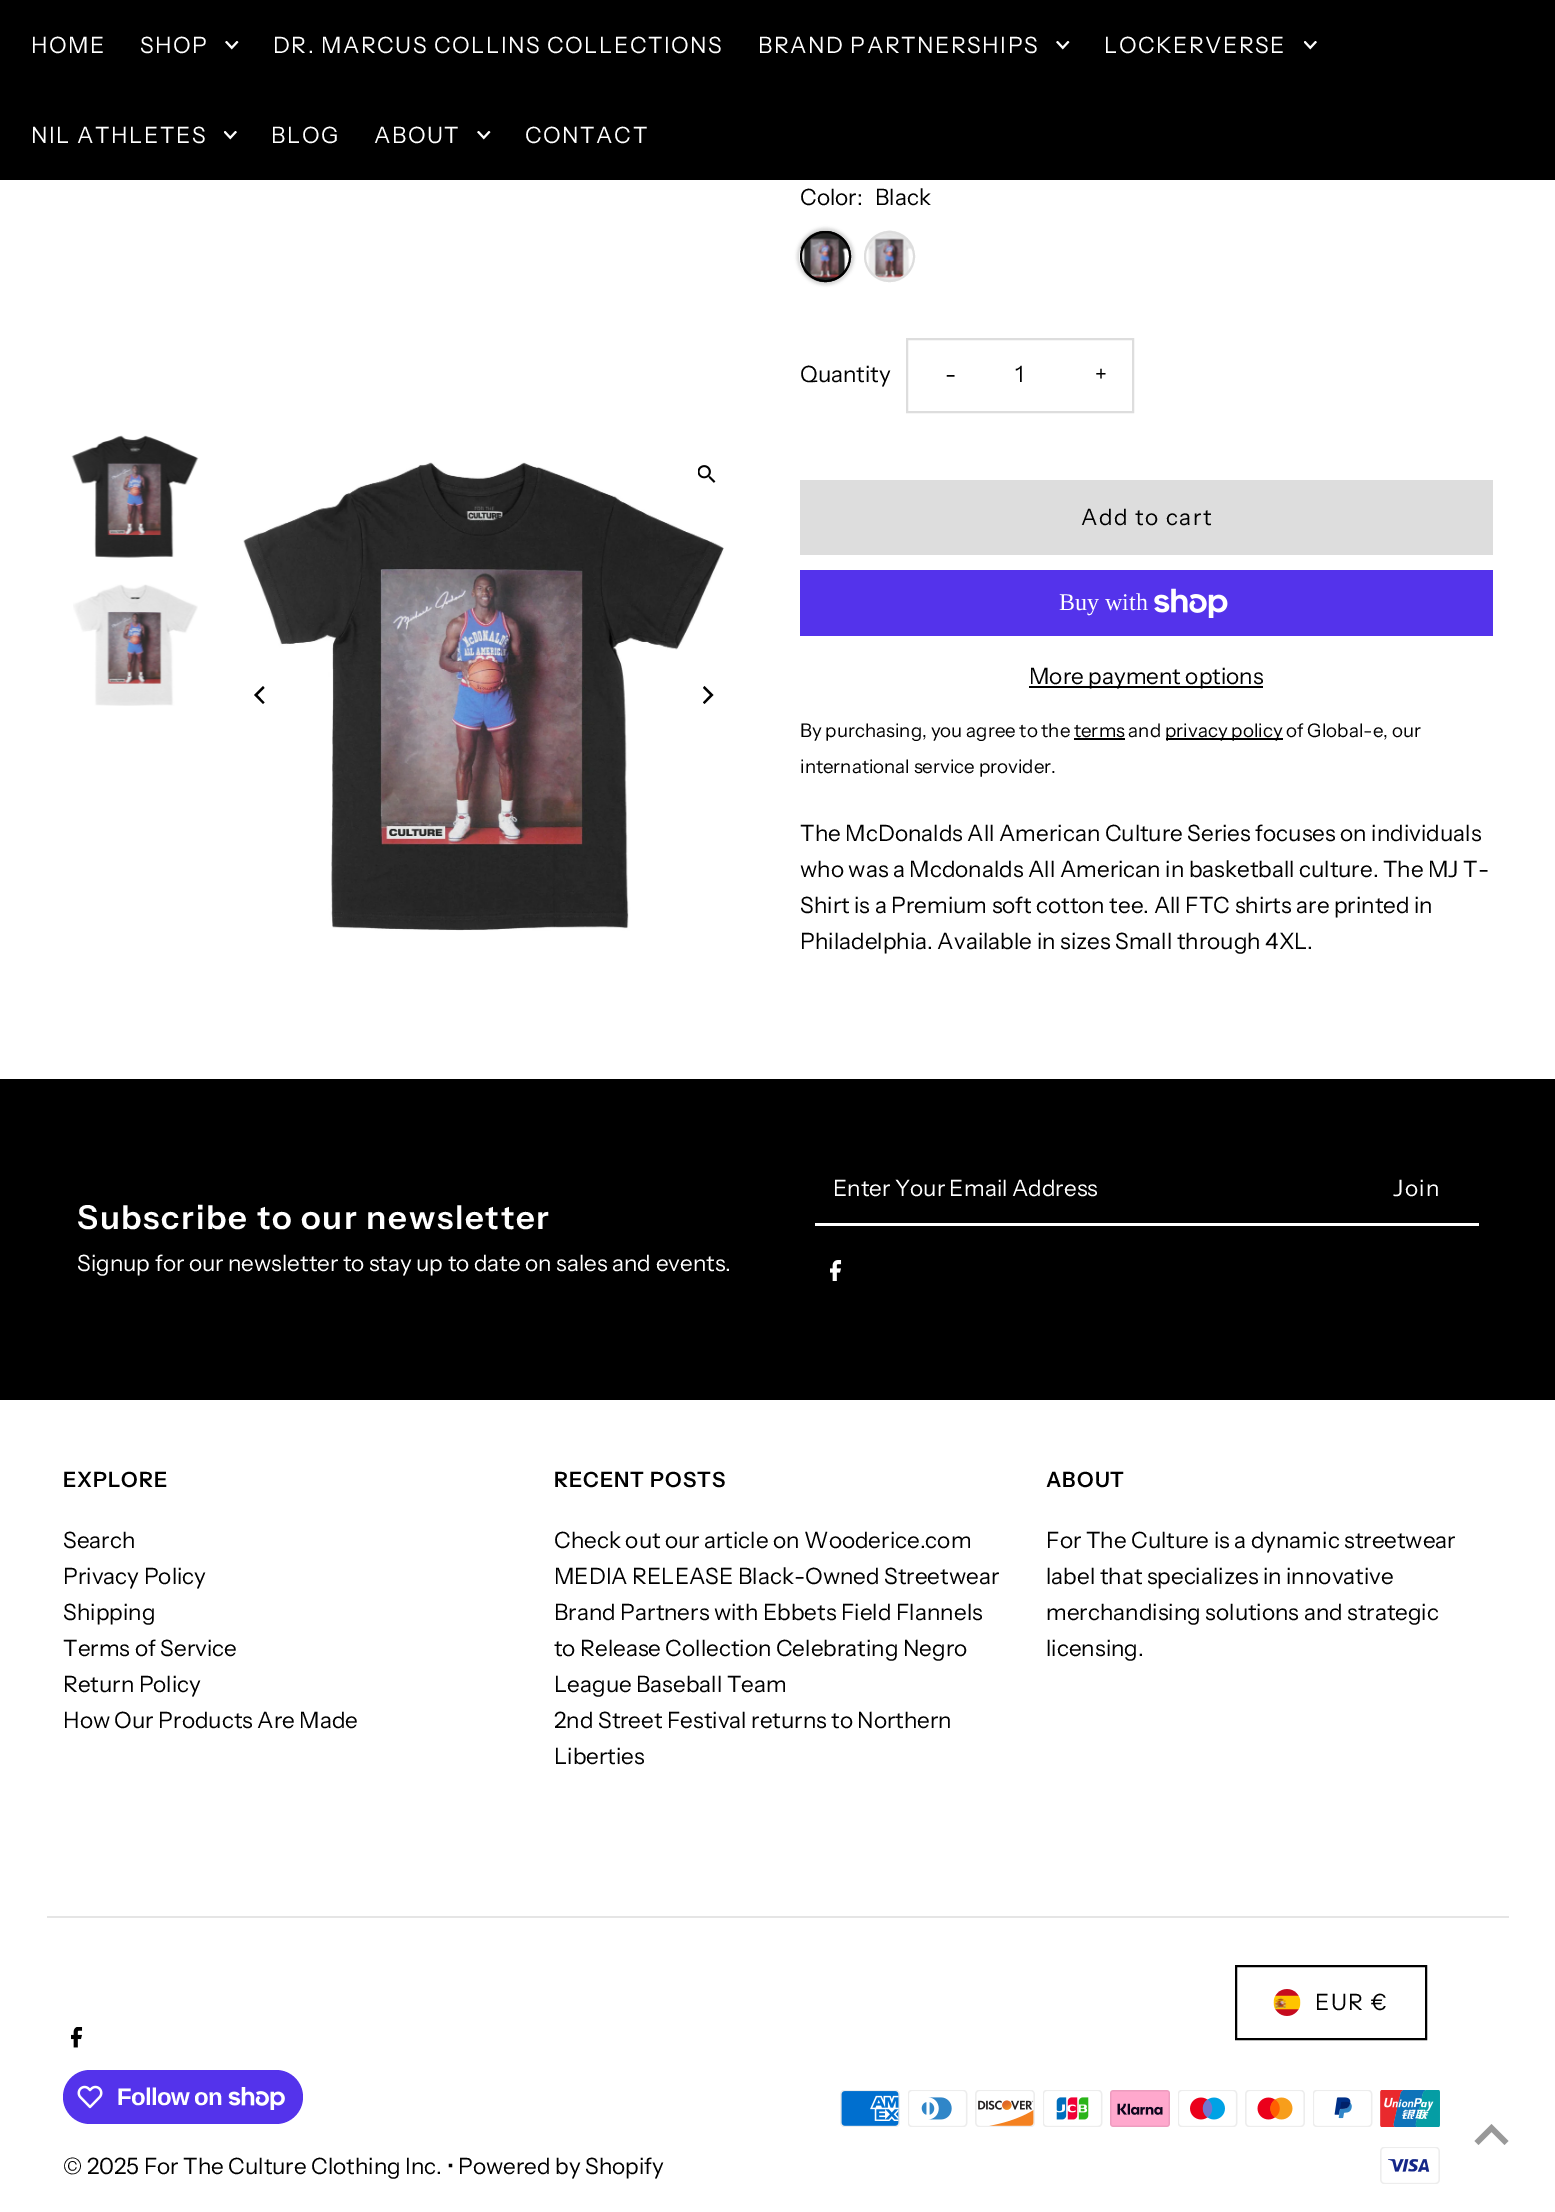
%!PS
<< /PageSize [1555 2212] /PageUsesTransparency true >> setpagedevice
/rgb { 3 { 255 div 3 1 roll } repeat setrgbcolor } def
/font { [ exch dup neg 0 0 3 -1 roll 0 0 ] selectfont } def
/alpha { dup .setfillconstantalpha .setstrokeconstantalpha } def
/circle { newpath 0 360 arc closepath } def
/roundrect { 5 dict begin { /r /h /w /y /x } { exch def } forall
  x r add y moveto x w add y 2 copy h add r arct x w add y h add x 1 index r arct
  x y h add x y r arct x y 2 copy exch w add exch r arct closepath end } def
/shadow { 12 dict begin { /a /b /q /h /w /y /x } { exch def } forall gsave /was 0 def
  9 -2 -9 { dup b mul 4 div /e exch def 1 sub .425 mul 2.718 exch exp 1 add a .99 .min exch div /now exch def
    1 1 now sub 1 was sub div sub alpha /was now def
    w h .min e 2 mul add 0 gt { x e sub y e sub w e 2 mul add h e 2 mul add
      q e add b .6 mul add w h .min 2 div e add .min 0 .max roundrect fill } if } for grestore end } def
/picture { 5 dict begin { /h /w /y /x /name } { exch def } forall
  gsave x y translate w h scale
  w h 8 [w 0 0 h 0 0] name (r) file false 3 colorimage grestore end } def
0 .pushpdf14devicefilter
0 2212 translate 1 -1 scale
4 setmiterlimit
255 255 255 rgb
0 0 1555 2212 rectfill
0 0 0 rgb
0 0 1555 180 rectfill
(img/1.rgb) 225 41 14 9 picture
(img/1.rgb) 1056 41 14 9 picture
(img/2.rgb) 1304 41 13 9 picture
(img/2.rgb) 224 131 13 9 picture
(img/1.rgb) 477 131 14 9 picture
(img/3.rgb) 71 435 128 123 picture
(img/4.rgb) 73 584 125 122 picture
(img/5.rgb) 243 462 481 469 picture
(img/6.rgb) 698 465 18 18 picture
254 695 moveto 263 704 lineto 264.5 702.5 lineto 257.5 695 lineto 264.5 688 lineto 263 686 lineto closepath fill
713.5 695 moveto 704.5 686 lineto 703 688 lineto 710 695 lineto 703 702.5 lineto 704.5 704 lineto closepath fill
214 214 214 rgb
797 228 57 57 28.5 1.5 1 shadow
(img/7.rgb) 799 230 52 53 picture
0 0 0 rgb
2 setlinewidth
825.5 256.5 24.5 circle stroke
(img/8.rgb) 865 230 49 52 picture
221 221 221 rgb
889.5 256.5 24.5 circle stroke
907 339 226 73 rectstroke
800 480 693 75 rectfill
84 51 235 rgb
800 570 693 66 rectfill
(img/9.rgb) 1154 588 74 30 picture
[
  [1029 686 234 2 0 0 0]
  [1166 738 117 2 0 0 0]
  [1074 738 51 2 0 0 0]
  [0 1079 1555 321 0 0 0]
  [815 1223 664 3 255 255 255]
] { aload pop rgb rectfill } forall
(img/10.rgb) 830 1260 12 21 picture
229 229 229 rgb
47 1916 1462 2 rectfill
0 0 0 rgb
1236 1966 190 73 rectstroke
(img/11.rgb) 1273 1989 28 27 picture
(img/12.rgb) 840 2090 60 37 picture
(img/13.rgb) 908 2090 60 37 picture
(img/14.rgb) 975 2090 60 37 picture
(img/15.rgb) 1043 2090 60 37 picture
(img/16.rgb) 1110 2090 60 37 picture
(img/17.rgb) 1178 2090 60 37 picture
(img/18.rgb) 1245 2090 60 37 picture
(img/19.rgb) 1313 2090 60 37 picture
(img/20.rgb) 1380 2090 60 37 picture
(img/21.rgb) 1380 2147 60 37 picture
(img/22.rgb) 71 2027 12 21 picture
84 51 235 rgb
63 2070 240 54 27 roundrect fill
(img/23.rgb) 77 2085 26 24 picture
(img/24.rgb) 228 2087 57 23 picture
153 153 153 rgb
1491.5 2124 moveto 1474.5 2141 lineto 1478.5 2145 lineto 1491.5 2132 lineto 1504.5 2145 lineto 1508.5 2141 lineto closepath fill
/InstrumentSans-Regular 22.5 font
255 255 255 rgb
31 53 moveto 1.5 0 (HOME) ashow
140 53 moveto 1.5 0 (SHOP) ashow
273 53 moveto 1.5 0 (DR. MARCUS COLLINS COLLECTIONS) ashow
758 53 moveto 1.5 0 (BRAND PARTNERSHIPS) ashow
1104 53 moveto 1.5 0 (LOCKERVERSE) ashow
31 143 moveto 1.5 0 (NIL ATHLETES) ashow
271 143 moveto 1.5 0 (BLOG) ashow
374 143 moveto 1.5 0 (ABOUT) ashow
525 143 moveto 1.5 0 (CONTACT) ashow
0 0 0 rgb
[
  [(Color:) 800 205]
  [(Black) 875 205]
  [(Quantity) 800 382]
] { aload pop moveto show } forall
945 382 moveto 1.5 0 (-) ashow
1015 382 moveto (1) show
1095 382 moveto 1.5 0 (+) ashow
1081 525 moveto 1.5 0 (Add to cart) ashow
/LiberationSerif-Regular 24 font
255 255 255 rgb
1059 610 moveto (Buy with) show
/InstrumentSans-Regular 22.5 font
0 0 0 rgb
1029 684 moveto (More payment options) show
/InstrumentSans-Regular 18.75 font
[
  [(By purchasing, you agree to the terms and) 800 737]
  [(privacy policy of Global-e, our) 1165 737]
  [(international service provider.) 800 773]
] { aload pop moveto show } forall
/InstrumentSans-Regular 22.5 font
[
  [(The McDonalds All American Culture Series focuses on individuals) 800 841]
  [(who was a Mcdonalds All American in basketball culture. The MJ T-) 800 877]
  [(Shirt is a Premium soft cotton tee. All FTC shirts are printed in) 800 913]
  [(Philadelphia. Available in sizes Small through 4XL.) 800 949]
] { aload pop moveto show } forall
255 255 255 rgb
833 1196 moveto (Enter Your Email Address) show
1393 1196 moveto 1.5 0 (Join) ashow
/InstrumentSans-SemiBold 33 font
77 1229 moveto 1.65 0 (Subscribe to our newsletter) ashow
/InstrumentSans-Regular 22.5 font
77 1271 moveto (Signup for our newsletter to stay up to date on sales and events.) show
/InstrumentSans-SemiBold 21 font
0 0 0 rgb
63 1487 moveto 1 0 (EXPLORE) ashow
/InstrumentSans-Regular 22.5 font
[
  [(Search) 63 1548]
  [(Privacy Policy) 63 1584]
  [(Shipping) 63 1620]
  [(Terms of Service) 63 1656]
  [(Return Policy) 63 1692]
  [(How Our Products Are Made) 63 1728]
] { aload pop moveto show } forall
/InstrumentSans-SemiBold 21 font
554 1487 moveto 1 0 (RECENT POSTS) ashow
/InstrumentSans-Regular 22.5 font
[
  [(Check out our article on Wooderice.com) 554 1548]
  [(MEDIA RELEASE Black-Owned Streetwear) 554 1584]
  [(Brand Partners with Ebbets Field Flannels) 554 1620]
  [(to Release Collection Celebrating Negro) 554 1656]
  [(League Baseball Team) 554 1692]
  [(2nd Street Festival returns to Northern) 554 1728]
  [(Liberties) 554 1764]
] { aload pop moveto show } forall
/InstrumentSans-SemiBold 21 font
1046 1487 moveto 1 0 (ABOUT) ashow
/InstrumentSans-Regular 22.5 font
[
  [(For The Culture is a dynamic streetwear) 1046 1548]
  [(label that specializes in innovative) 1046 1584]
  [(merchandising solutions and strategic) 1046 1620]
  [(licensing.) 1046 1656]
] { aload pop moveto show } forall
1315 2010 moveto 1.5 0 (EUR €) ashow
/LiberationSans-Bold 24 font
255 255 255 rgb
117 2105 moveto -0.75 0 (Follow on) ashow
/InstrumentSans-Regular 22.5 font
0 0 0 rgb
63 2174 moveto (© 2025 For The Culture Clothing Inc. • Powered by Shopify) show
.poppdf14devicefilter showpage
